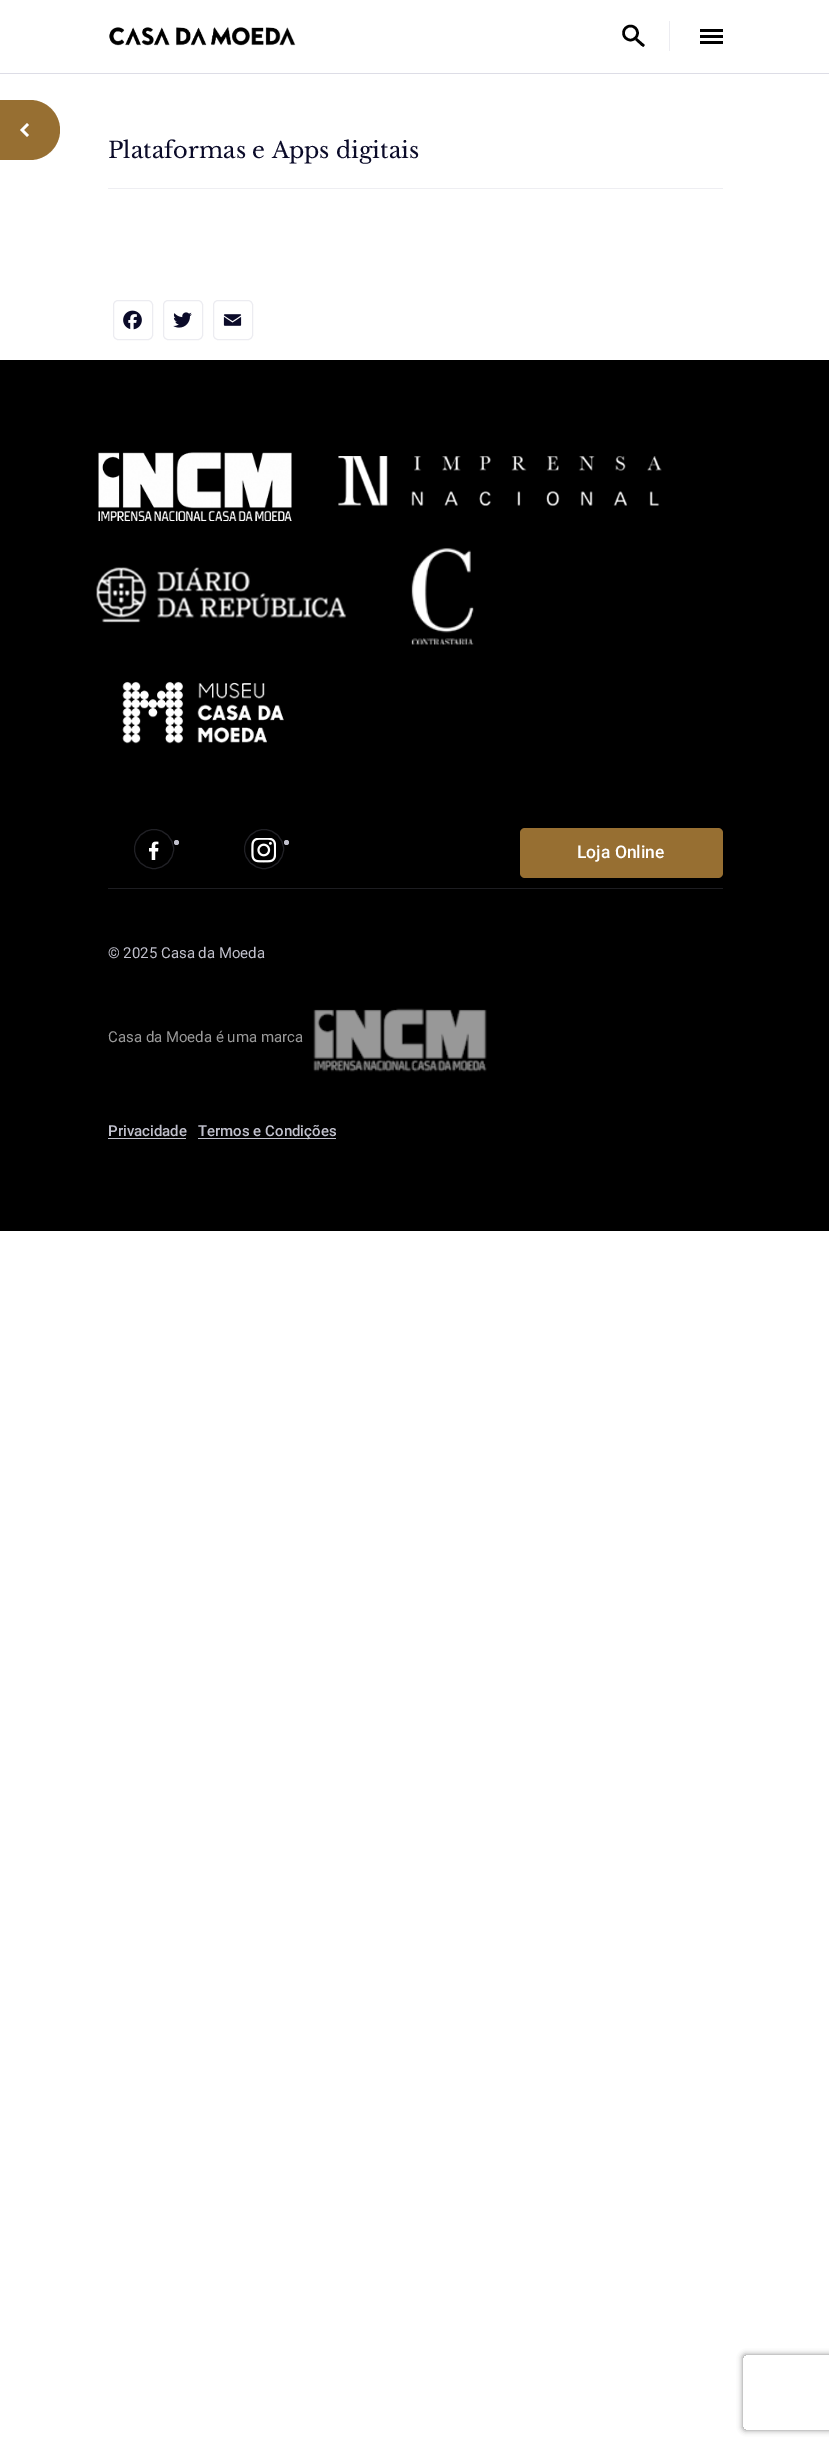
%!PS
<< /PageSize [829 2447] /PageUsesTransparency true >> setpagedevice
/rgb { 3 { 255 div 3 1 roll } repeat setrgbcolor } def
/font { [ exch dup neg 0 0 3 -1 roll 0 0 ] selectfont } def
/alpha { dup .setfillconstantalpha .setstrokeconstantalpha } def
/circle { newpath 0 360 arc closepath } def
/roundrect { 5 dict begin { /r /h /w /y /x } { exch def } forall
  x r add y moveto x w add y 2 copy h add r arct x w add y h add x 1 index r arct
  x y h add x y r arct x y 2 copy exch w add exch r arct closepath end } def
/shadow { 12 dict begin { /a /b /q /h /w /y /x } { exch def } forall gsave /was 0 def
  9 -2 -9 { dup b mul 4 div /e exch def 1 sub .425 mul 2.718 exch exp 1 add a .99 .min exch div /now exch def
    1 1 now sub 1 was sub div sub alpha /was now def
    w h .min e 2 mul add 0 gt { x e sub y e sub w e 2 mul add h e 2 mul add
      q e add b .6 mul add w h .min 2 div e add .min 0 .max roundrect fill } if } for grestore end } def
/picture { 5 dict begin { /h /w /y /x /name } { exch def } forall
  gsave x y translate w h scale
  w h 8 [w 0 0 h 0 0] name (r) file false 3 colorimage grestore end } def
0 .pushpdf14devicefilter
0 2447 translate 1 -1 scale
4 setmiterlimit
255 255 255 rgb
0 0 829 2447 rectfill
221 221 230 rgb
0 73 829 1 rectfill
(img/1.rgb) 109 27 187 19 picture
236 236 241 rgb
669 21 1 30 rectfill
0 0 0 rgb
2.5 setlinewidth
630.5 33 7 circle stroke
1 setlinejoin
636 39 moveto 644 46 lineto 636 39 moveto 642.5 45 lineto stroke
[
  [700 29 23 3 0 0 0]
  [700 35 23 3 0 0 0]
  [700 41 23 3 0 0 0]
] { aload pop rgb rectfill } forall
151 111 50 rgb
0 100 moveto 30 100 lineto 46.5 100 60 113.5 60 130 curveto 60 146.5 46.5 160 30 160 curveto 0 160 lineto closepath fill
255 255 255 rgb
0 setlinejoin
28 124 moveto 22 130 lineto 28 136 lineto stroke
238 238 242 rgb
108 188 615 1 rectfill
236 236 241 rgb
1 setlinewidth
113.5 300.5 39 39 4.5 roundrect stroke
(img/2.rgb) 123 310 19 20 picture
163.5 300.5 39 39 4.5 roundrect stroke
(img/3.rgb) 173 312 19 16 picture
213.5 300.5 39 39 4.5 roundrect stroke
(img/4.rgb) 223 314 19 12 picture
0 0 0 rgb
0 360 829 871 rectfill
(img/5.rgb) 98 452 194 69 picture
(img/6.rgb) 338 456 324 50 picture
(img/7.rgb) 96 567 251 56 picture
(img/8.rgb) 411 548 63 97 picture
(img/9.rgb) 122 681 162 63 picture
32 32 37 rgb
154 849 19.5 circle stroke
(img/10.rgb) 149 841 10 19 picture
192 192 204 rgb
176.5 842.5 2.5 circle fill
32 32 37 rgb
264 849 19.5 circle stroke
(img/11.rgb) 251 838 25 25 picture
192 192 204 rgb
286.5 842.5 2.5 circle fill
151 111 50 rgb
520 828 203 50 5 roundrect fill
29 29 33 rgb
108 888 615 1 rectfill
(img/12.rgb) 313 1008 174 64 picture
192 192 204 rgb
108 1138 78 1 rectfill
198 1138 138 1 rectfill
gsave
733 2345 moveto 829 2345 lineto 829 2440 lineto 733 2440 lineto closepath 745.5 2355 moveto 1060.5 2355 lineto 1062 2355 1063 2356 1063 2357.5 curveto 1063 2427.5 lineto 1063 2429 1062 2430 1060.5 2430 curveto 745.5 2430 lineto 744 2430 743 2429 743 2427.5 curveto 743 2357.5 lineto 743 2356 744 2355 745.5 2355 curveto closepath eoclip newpath
128 128 128 rgb
743 2355 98 75 2.5 3 1 shadow
grestore
/LibreBaskerville-Regular 22.5 font
11 11 41 rgb
108 158 moveto (Plataformas e Apps digitais) show
/Roboto-Medium 17.5 font
255 255 255 rgb
577 858 moveto (Loja Online) show
/Roboto-Regular 15 font
192 192 204 rgb
108 958 moveto (© 2025 Casa da Moeda) show
153 153 153 rgb
108 1042 moveto (Casa da Moeda é uma marca) show
/Roboto-Medium 15 font
192 192 204 rgb
108 1136 moveto (Privacidade) show
198 1136 moveto (Termos e Condições) show
.poppdf14devicefilter showpage
